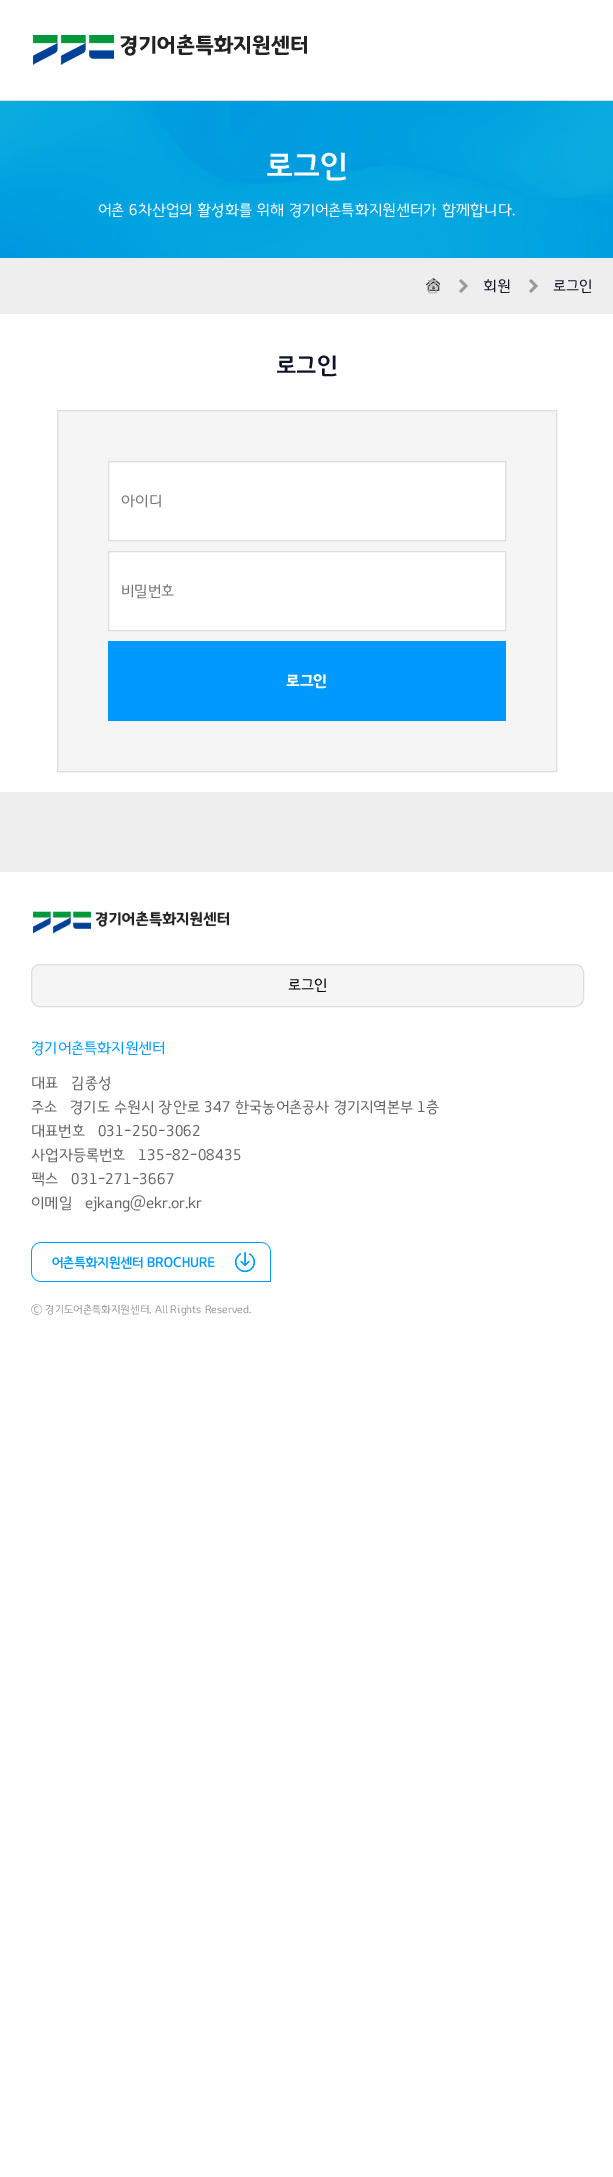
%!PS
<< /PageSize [613 2177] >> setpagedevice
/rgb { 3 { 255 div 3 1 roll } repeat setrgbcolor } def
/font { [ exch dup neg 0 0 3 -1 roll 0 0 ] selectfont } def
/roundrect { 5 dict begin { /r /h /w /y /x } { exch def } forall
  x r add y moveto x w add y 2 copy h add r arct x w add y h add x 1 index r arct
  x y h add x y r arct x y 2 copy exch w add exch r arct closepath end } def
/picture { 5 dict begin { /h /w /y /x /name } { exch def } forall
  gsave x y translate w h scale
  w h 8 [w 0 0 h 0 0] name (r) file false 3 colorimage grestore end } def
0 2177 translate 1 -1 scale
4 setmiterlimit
255 255 255 rgb
0 0 613 2177 rectfill
221 221 221 rgb
0 100 613 1 rectfill
(img/1.rgb) 33 34 274 31 picture
238 238 238 rgb
0 258 613 614 rectfill
(img/2.rgb) 0 101 613 157 picture
(img/3.rgb) 426 278 14 13 picture
(img/4.rgb) 459 279 9 14 picture
(img/4.rgb) 529 279 9 14 picture
255 255 255 rgb
0 314 613 478 rectfill
245 245 245 rgb
57.5 410.5 moveto 556.5 410.5 lineto 556.5 771.5 lineto 57.5 771.5 lineto closepath gsave fill grestore
221 221 221 rgb
stroke
255 255 255 rgb
108.5 461.5 moveto 505.5 461.5 lineto 505.5 540.5 lineto 108.5 540.5 lineto closepath gsave fill grestore
221 221 221 rgb
stroke
255 255 255 rgb
108.5 551.5 moveto 505.5 551.5 lineto 505.5 630.5 lineto 108.5 630.5 lineto closepath gsave fill grestore
221 221 221 rgb
stroke
0 154 254 rgb
108 641 398 80 rectfill
(img/5.rgb) 33 911 196 23 picture
245 245 245 rgb
31.5 964.5 552 42 8.5 roundrect gsave fill grestore
221 221 221 rgb
stroke
(img/6.rgb) 31 1242 240 40 picture
/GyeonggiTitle-Medium 32 font
255 255 255 rgb
266 176 moveto (로그인) show
/GyeonggiTitle-Light 16 font
98 215 moveto (어촌 6차산업의 활성화를 위해 경기어촌특화지원센터가 함께합니다.) show
170 170 170 rgb
426 291 moveto (홈) show
17 20 39 rgb
483 291 moveto (회원) show
553 291 moveto (로그인) show
/GyeonggiTitle-Medium 24 font
276 373 moveto (로그인) show
/GyeonggiTitle-Light 16 font
117 117 117 rgb
121 506 moveto (아이디) show
121 596 moveto (비밀번호) show
/GyeonggiTitle-Bold 16 font
255 255 255 rgb
286 686 moveto (로그인) show
/GyeonggiTitle-Light 16 font
0 0 0 rgb
288 990 moveto (로그인) show
0 154 254 rgb
31 1053 moveto (경기어촌특화지원센터) show
102 102 102 rgb
[
  [(대표   김종성) 31 1088]
  [(주소   경기도 수원시 장안로 347 한국농어촌공사 경기지역본부 1층) 31 1112]
  [(대표번호   031-250-3062) 31 1136]
  [(사업자등록번호   135-82-08435) 31 1160]
  [(팩스   031-271-3667) 31 1184]
  [(이메일   ejkang@ekr.or.kr) 31 1208]
] { aload pop moveto show } forall
/GyeonggiTitle-Light 11.25 font
153 153 153 rgb
31 1313 moveto (© 경기도어촌특화지원센터. All Rights Reserved.) show
showpage
